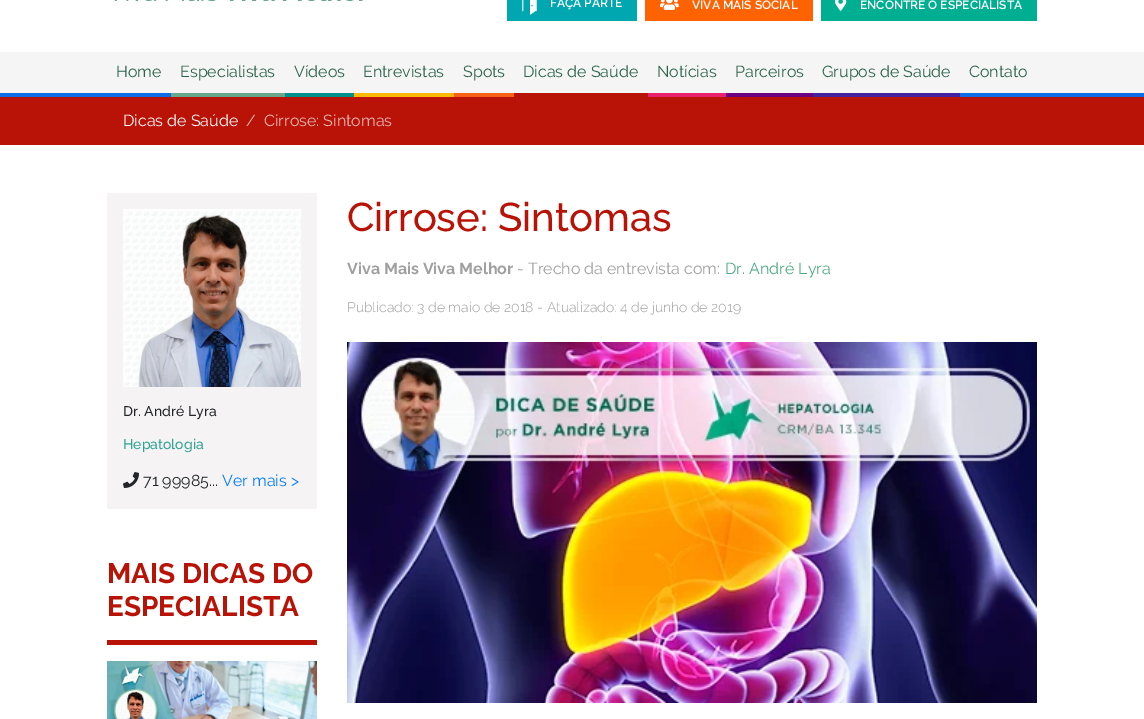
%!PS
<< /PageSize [1144 719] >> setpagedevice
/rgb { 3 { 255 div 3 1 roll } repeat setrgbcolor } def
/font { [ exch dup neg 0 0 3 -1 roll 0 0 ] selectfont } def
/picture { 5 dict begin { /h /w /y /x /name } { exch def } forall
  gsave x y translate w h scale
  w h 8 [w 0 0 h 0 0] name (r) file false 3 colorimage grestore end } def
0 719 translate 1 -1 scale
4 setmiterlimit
255 255 255 rgb
0 0 1144 719 rectfill
(img/1.rgb) 114 0 249 1 picture
0 167 176 rgb
507 0 130 21 rectfill
(img/2.rgb) 522 0 15 15 picture
255 98 0 rgb
645 0 168 21 rectfill
(img/3.rgb) 660 0 19 10 picture
0 175 146 rgb
821 0 216 21 rectfill
(img/4.rgb) 835 0 12 11 picture
[
  [0 52 1144 41 245 245 245]
  [0 93 1144 4 11 110 230]
  [171 93 114 4 106 166 139]
  [285 93 69 4 4 145 140]
  [354 93 100 4 255 183 0]
  [454 93 60 4 248 98 24]
  [514 93 134 4 185 18 6]
  [648 93 78 4 232 34 109]
  [726 93 87 4 109 0 129]
  [813 93 147 4 68 34 158]
  [0 97 1144 48 185 18 6]
] { aload pop rgb rectfill } forall
(img/5.rgb) 347 342 690 361 picture
245 243 243 rgb
107 193 210 316 rectfill
(img/6.rgb) 123 209 178 178 picture
(img/7.rgb) 123 472 16 16 picture
185 18 6 rgb
107 640 210 5 rectfill
(img/8.rgb) 107 661 210 58 picture
/Raleway-SemiBold 12 font
255 255 255 rgb
[
  [(FAÇA PARTE) 550 7]
  [(VIVA MAIS SOCIAL) 692 9]
  [(ENCONTRE O ESPECIALISTA) 860 9]
] { aload pop moveto show } forall
/Raleway-Regular 16 font
43 99 74 rgb
[
  [(Home) 116 77]
  [(Especialistas) 180 77]
  [(Vídeos) 294 77]
  [(Entrevistas) 363 77]
  [(Spots) 463 77]
  [(Dicas de Saúde) 523 77]
  [(Notícias) 657 77]
  [(Parceiros) 735 77]
  [(Grupos de Saúde) 822 77]
  [(Contato) 969 77]
] { aload pop moveto show } forall
255 255 255 rgb
123 126 moveto (Dicas de Saúde) show
234 184 180 rgb
246 126 moveto (/) show
264 126 moveto (Cirrose: Sintomas) show
/Raleway-Medium 40 font
185 18 6 rgb
347 231 moveto (Cirrose: Sintomas) show
/Raleway-Bold 16 font
160 160 160 rgb
347 274 moveto (Viva Mais Viva Melhor) show
/Raleway-Regular 16 font
517 274 moveto (- Trecho da entrevista com:) show
78 170 131 rgb
725 274 moveto (Dr. André Lyra) show
/Raleway-Light 14 font
160 160 160 rgb
347 312 moveto (Publicado: 3 de maio de 2018 - Atualizado: 4 de junho de 2019) show
/Raleway-Medium 14 font
33 37 41 rgb
123 416 moveto (Dr. André Lyra) show
46 163 146 rgb
123 449 moveto (Hepatologia) show
/Raleway-Regular 16 font
33 37 41 rgb
143 486 moveto (71 99985...) show
0 123 255 rgb
222 486 moveto (Ver mais >) show
/Raleway-Bold 28 font
185 18 6 rgb
107 583 moveto (MAIS DICAS DO) show
107 616 moveto (ESPECIALISTA) show
showpage
